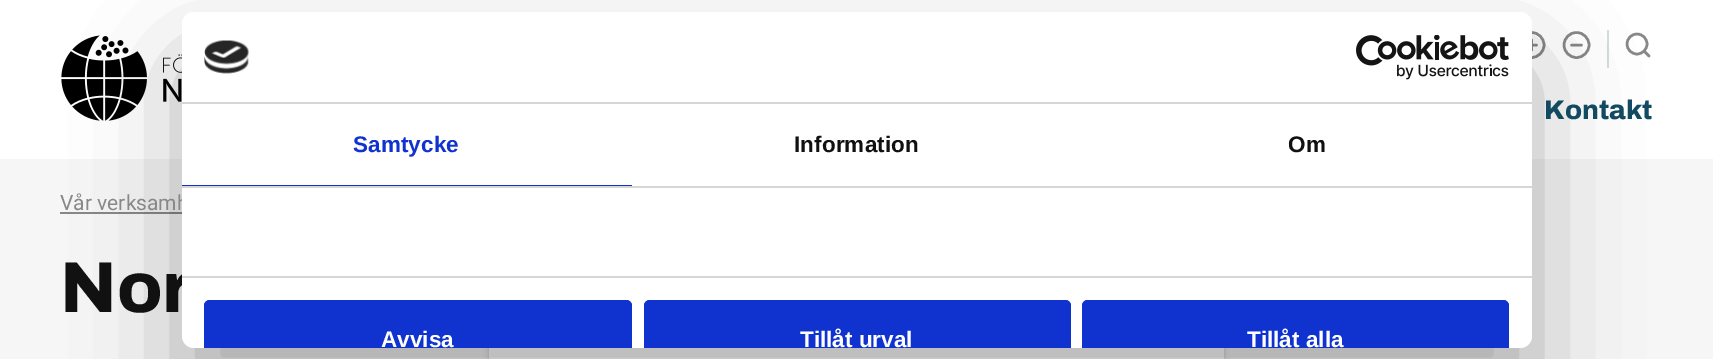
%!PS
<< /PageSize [1713 359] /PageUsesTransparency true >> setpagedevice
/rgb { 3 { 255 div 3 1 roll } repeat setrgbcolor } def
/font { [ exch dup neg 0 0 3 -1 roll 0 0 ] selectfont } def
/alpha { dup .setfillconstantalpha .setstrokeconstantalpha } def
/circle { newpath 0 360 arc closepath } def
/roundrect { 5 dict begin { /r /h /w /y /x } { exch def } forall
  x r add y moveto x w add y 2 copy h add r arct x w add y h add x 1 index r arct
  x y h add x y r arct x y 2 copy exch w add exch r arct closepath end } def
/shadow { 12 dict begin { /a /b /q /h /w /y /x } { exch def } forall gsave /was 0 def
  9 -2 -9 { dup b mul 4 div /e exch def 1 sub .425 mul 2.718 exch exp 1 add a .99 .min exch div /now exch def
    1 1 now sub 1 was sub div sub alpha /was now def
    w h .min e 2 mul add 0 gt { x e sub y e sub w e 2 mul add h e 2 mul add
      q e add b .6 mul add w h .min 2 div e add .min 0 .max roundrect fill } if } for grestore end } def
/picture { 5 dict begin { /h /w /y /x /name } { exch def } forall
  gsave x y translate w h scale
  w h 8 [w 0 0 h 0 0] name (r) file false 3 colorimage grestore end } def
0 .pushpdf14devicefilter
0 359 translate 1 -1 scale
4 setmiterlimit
246 246 246 rgb
0 0 1713 359 rectfill
255 255 255 rgb
0 0 1713 159 rectfill
0 0 0 rgb
489 57 735 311 0 3 0.2 shadow
255 255 255 rgb
489 348 735 11 rectfill
(img/1.rgb) 61 35 121 86 picture
136 136 136 rgb
2.5 setlinewidth
1531.5 45 12.5 circle stroke
1 setlinecap
1 setlinejoin
1531.5 40 moveto 1531.5 50 lineto 1526.5 45 moveto 1536.5 45 lineto stroke
213 221 223 rgb
1607 30 2 38 rectfill
136 136 136 rgb
0 setlinecap
0 setlinejoin
1576.5 45 12.5 circle stroke
1 setlinecap
1 setlinejoin
1571.5 45 moveto 1581.5 45 lineto stroke
0 setlinecap
0 setlinejoin
1637 44 10 circle stroke
1 setlinecap
1 setlinejoin
1649 56 moveto 1644 51 lineto stroke
60 212 122 2 rectfill
0 0 0 rgb
182 60 1350 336 12 51 0.3 shadow
/Archivo-ExtraBold 27 font
18 74 97 rgb
1544 119 moveto (Kontakt) show
/Roboto-Regular 21 font
136 136 136 rgb
60 210 moveto (Vår verksamh) show
/Archivo-ExtraBold 72 font
17 17 17 rgb
60 312 moveto (Nor) show
255 255 255 rgb
182 12 1350 336 12 roundrect fill
214 214 214 rgb
182 102 1350 2 rectfill
(img/2.rgb) 204 40 45 34 picture
(img/3.rgb) 1356 35 153 45 picture
182 186 1350 2 rectfill
16 50 207 rgb
182 185 450 1 rectfill
/LiberationSans-Bold 22.5 font
353 152 moveto 0.1 0 (Samtycke) ashow
17 17 17 rgb
794 152 moveto 0.1 0 (Information) ashow
1288 152 moveto 0.1 0 (Om) ashow
214 214 214 rgb
182 276 1350 2 rectfill
16 50 207 rgb
210 300 moveto 626 300 lineto 629.5 300 632 302.5 632 306 curveto 632 348 lineto 204 348 lineto 204 306 lineto 204 302.5 206.5 300 210 300 curveto closepath fill
210 300 moveto 207 300 204 303 204 306 curveto 204 348 lineto 207 348 lineto 207 306 lineto 207 304 208 303 210 303 curveto 626 303 lineto 628 303 629 304 629 306 curveto 629 348 lineto 632 348 lineto 632 306 lineto 632 303 629 300 626 300 curveto closepath fill
255 255 255 rgb
381 347 moveto (Avvisa) show
16 50 207 rgb
650 300 moveto 1065 300 lineto 1068.5 300 1071 302.5 1071 306 curveto 1071 348 lineto 644 348 lineto 644 306 lineto 644 302.5 646.5 300 650 300 curveto closepath fill
650 300 moveto 647 300 644 303 644 306 curveto 644 348 lineto 647 348 lineto 647 306 lineto 647 304 648 303 650 303 curveto 1065 303 lineto 1067 303 1068 304 1068 306 curveto 1068 348 lineto 1071 348 lineto 1071 306 lineto 1071 303 1068 300 1065 300 curveto closepath fill
255 255 255 rgb
800 347 moveto (Tillåt urval) show
16 50 207 rgb
1088 300 moveto 1503 300 lineto 1506.5 300 1509 302.5 1509 306 curveto 1509 348 lineto 1082 348 lineto 1082 306 lineto 1082 302.5 1084.5 300 1088 300 curveto closepath fill
1088 300 moveto 1085 300 1082 303 1082 306 curveto 1082 348 lineto 1085 348 lineto 1085 306 lineto 1085 304 1086 303 1088 303 curveto 1503 303 lineto 1505 303 1506 304 1506 306 curveto 1506 348 lineto 1509 348 lineto 1509 306 lineto 1509 303 1506 300 1503 300 curveto closepath fill
255 255 255 rgb
1247 347 moveto (Tillåt alla) show
.poppdf14devicefilter showpage
